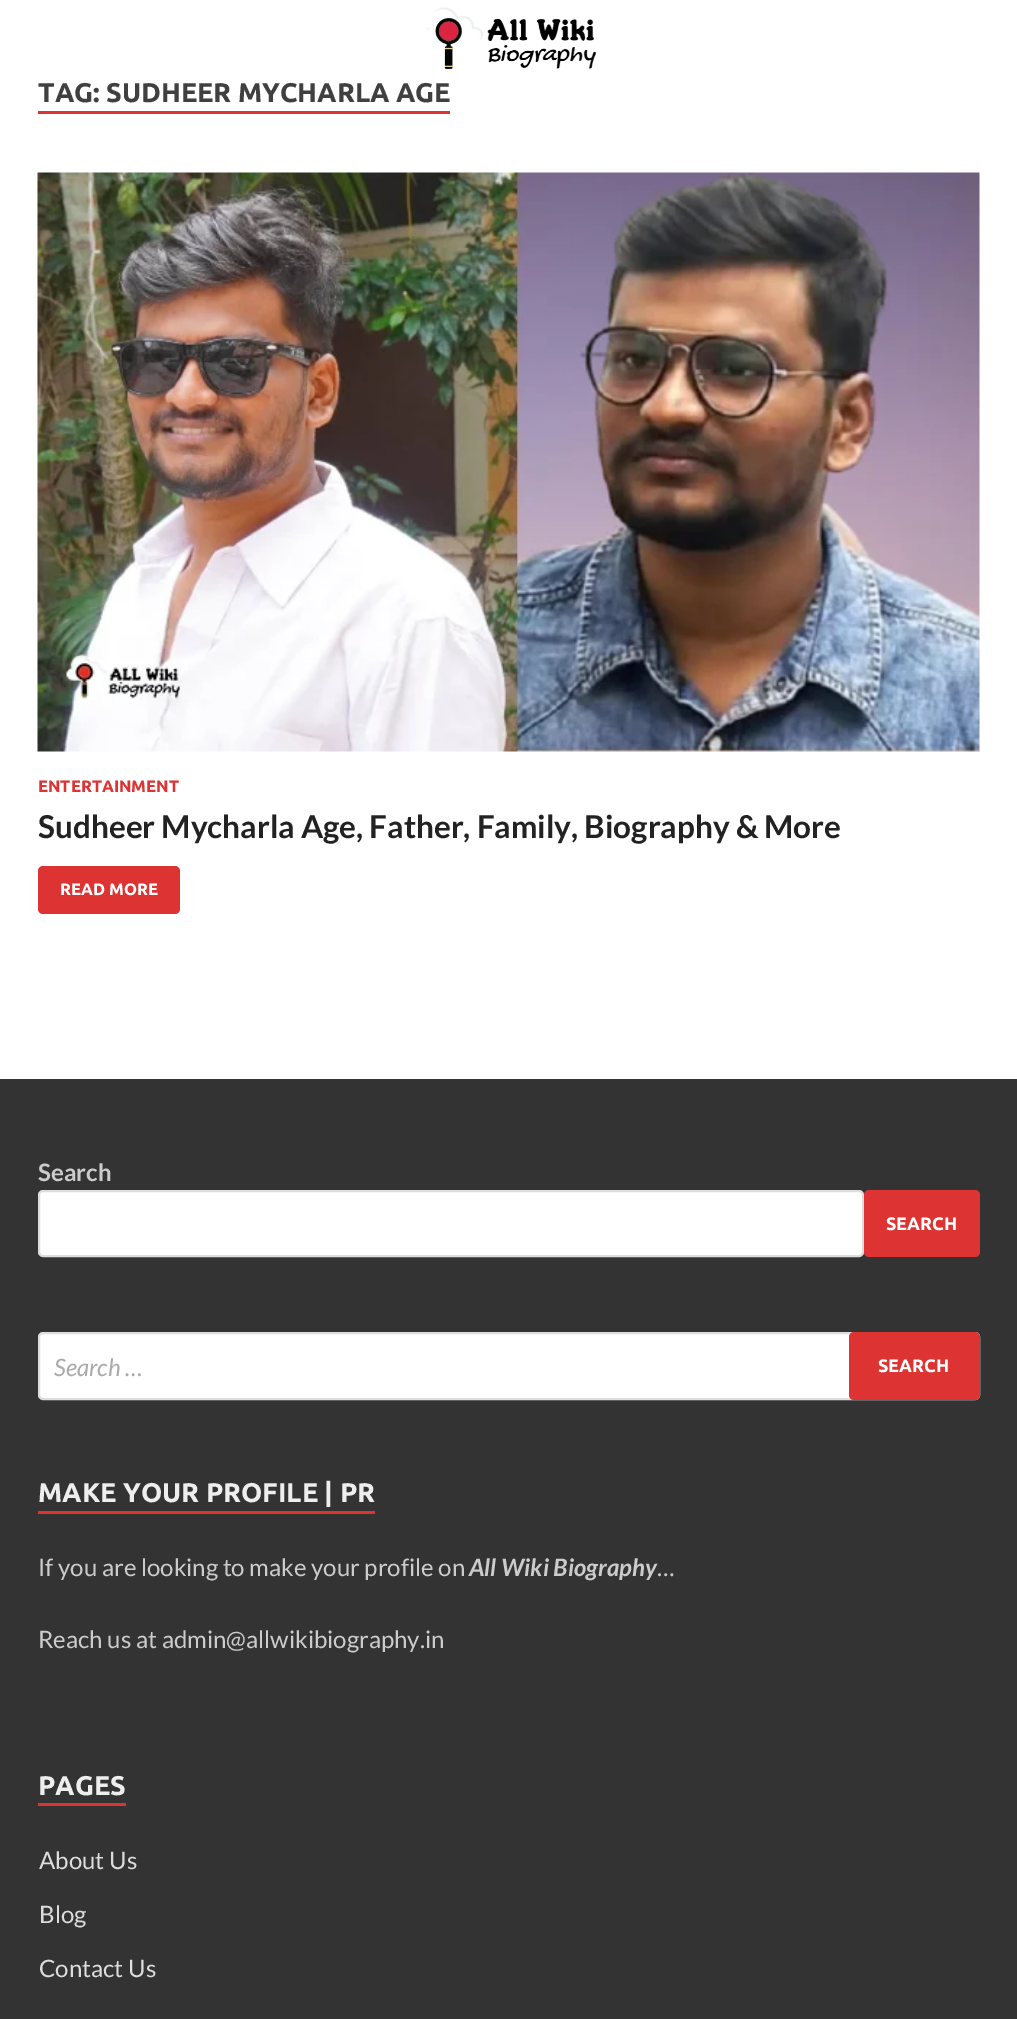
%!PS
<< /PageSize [1017 2019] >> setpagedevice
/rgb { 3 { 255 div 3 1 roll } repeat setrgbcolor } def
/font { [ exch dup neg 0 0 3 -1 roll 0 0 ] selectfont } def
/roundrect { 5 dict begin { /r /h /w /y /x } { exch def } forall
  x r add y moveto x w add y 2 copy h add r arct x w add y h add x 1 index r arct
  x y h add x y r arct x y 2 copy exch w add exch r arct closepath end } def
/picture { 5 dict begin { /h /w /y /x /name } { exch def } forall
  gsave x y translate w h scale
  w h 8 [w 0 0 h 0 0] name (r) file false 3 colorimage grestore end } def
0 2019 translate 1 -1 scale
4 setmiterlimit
255 255 255 rgb
0 0 1017 2019 rectfill
(img/1.rgb) 426 7 170 62 picture
221 51 51 rgb
38 111 412 3 rectfill
(img/2.rgb) 37 172 943 580 picture
38 866 142 48 5 roundrect fill
51 51 51 rgb
0 1079 1017 940 rectfill
255 255 255 rgb
39 1191 824 65 4 roundrect gsave fill grestore
221 221 221 rgb
2 setlinewidth
stroke
221 51 51 rgb
864 1190 116 67 5 roundrect fill
255 255 255 rgb
39 1333 940 66 4 roundrect gsave fill grestore
221 221 221 rgb
stroke
221 51 51 rgb
849 1332 131 68 5 roundrect fill
38 1511 337 3 rectfill
38 1803 88 3 rectfill
/Ubuntu-Bold 27 font
64 64 64 rgb
38 102 moveto (TAG: SUDHEER MYCHARLA AGE) show
/Ubuntu-Bold 16.5 font
221 51 51 rgb
38 792 moveto (ENTERTAINMENT) show
/Lato-Bold 31.5 font
34 34 34 rgb
38 838 moveto (Sudheer Mycharla Age, Father, Family, Biography & More) show
/Ubuntu-Bold 16.5 font
255 255 255 rgb
60 895 moveto (READ MORE) show
/Lato-Bold 24 font
204 204 204 rgb
38 1181 moveto (Search) show
/Ubuntu-Bold 18 font
255 255 255 rgb
886 1230 moveto (SEARCH) show
/Lato-Italic 24 font
170 170 170 rgb
54 1376 moveto (Search …) show
/Ubuntu-Bold 18 font
255 255 255 rgb
878 1372 moveto (SEARCH) show
/Ubuntu-Bold 27 font
238 238 238 rgb
38 1502 moveto (MAKE YOUR PROFILE | PR) show
/Lato-Regular 24 font
204 204 204 rgb
38 1576 moveto (If you are looking to make your profile on) show
/Lato-BoldItalic 24 font
469 1576 moveto (All Wiki Biography) show
/Lato-Regular 24 font
657 1576 moveto (…) show
38 1648 moveto (Reach us at admin@allwikibiography.in) show
/Ubuntu-Bold 27 font
238 238 238 rgb
38 1795 moveto (PAGES) show
/Lato-Regular 24 font
221 221 221 rgb
[
  [(About Us) 39 1869]
  [(Blog) 39 1923]
  [(Contact Us) 39 1977]
] { aload pop moveto show } forall
showpage
